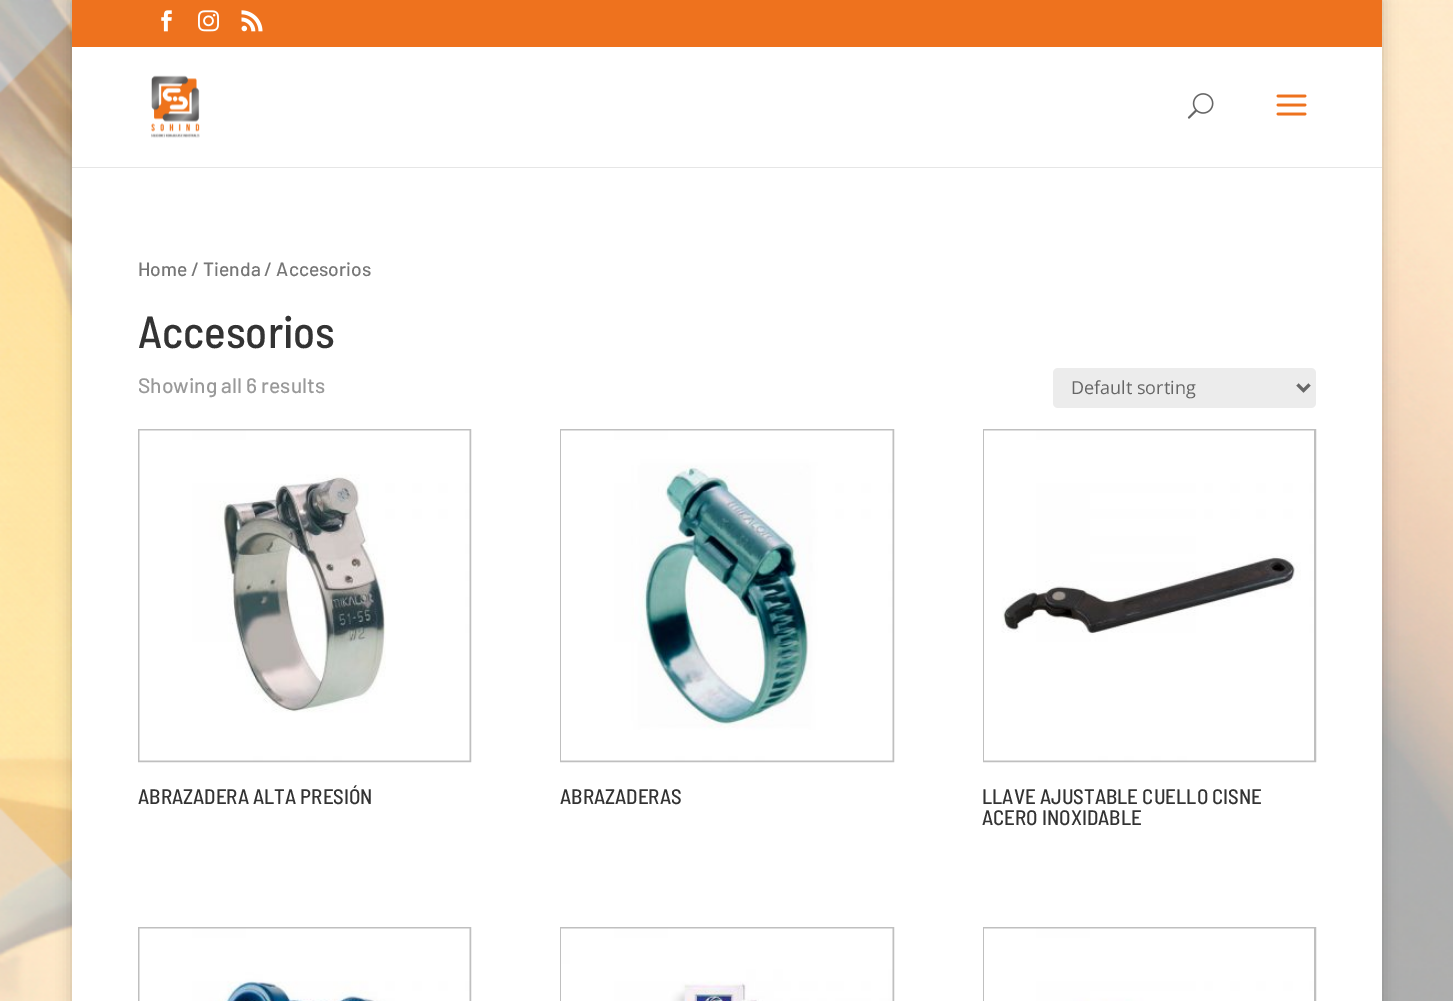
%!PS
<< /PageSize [1453 1001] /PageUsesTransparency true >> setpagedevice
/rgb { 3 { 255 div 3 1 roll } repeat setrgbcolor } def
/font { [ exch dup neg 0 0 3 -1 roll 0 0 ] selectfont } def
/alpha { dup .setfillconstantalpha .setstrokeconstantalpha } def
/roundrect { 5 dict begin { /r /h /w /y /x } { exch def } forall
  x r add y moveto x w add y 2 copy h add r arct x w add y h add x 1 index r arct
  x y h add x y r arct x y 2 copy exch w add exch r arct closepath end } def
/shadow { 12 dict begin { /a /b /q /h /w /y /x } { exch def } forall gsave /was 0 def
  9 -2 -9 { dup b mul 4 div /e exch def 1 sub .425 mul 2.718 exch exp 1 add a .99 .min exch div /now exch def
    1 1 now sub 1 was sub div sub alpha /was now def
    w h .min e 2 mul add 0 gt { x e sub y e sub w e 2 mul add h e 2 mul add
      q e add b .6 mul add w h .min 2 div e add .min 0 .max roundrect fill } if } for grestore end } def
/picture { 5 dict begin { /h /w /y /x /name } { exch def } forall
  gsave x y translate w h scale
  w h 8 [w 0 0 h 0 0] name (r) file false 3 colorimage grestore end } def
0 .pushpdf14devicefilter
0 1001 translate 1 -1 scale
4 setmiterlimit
255 255 255 rgb
0 0 1453 1001 rectfill
(img/1.rgb) 0 0 1453 1001 picture
0 0 0 rgb
72 0 1310 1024 0 7.5 0.2 shadow
238 114 30 rgb
72 0 1310 47 rectfill
(img/2.rgb) 161 10 11 22 picture
(img/3.rgb) 198 10 21 22 picture
(img/4.rgb) 241 10 22 22 picture
230 230 230 rgb
72 166 moveto 72 168 lineto 1382 168 lineto 1382 48 lineto 1382 166 lineto closepath fill
255 255 255 rgb
72 47 1310 120 rectfill
(img/5.rgb) 151 75 49 63 picture
(img/6.rgb) 1187 93 27 26 picture
(img/7.rgb) 1276 94 31 22 picture
72 168 1310 833 rectfill
236 236 236 rgb
1053 368 263 40 5 roundrect fill
102 102 102 rgb
3 setlinewidth
1297.5 384.5 moveto 1303.5 390.5 lineto 1309.5 384.5 lineto stroke
191 191 191 rgb
2 setlinewidth
139 430 331 331 rectstroke
(img/8.rgb) 139 430 331 331 picture
561 430 332 331 rectstroke
(img/9.rgb) 561 430 332 331 picture
984 430 331 331 rectstroke
(img/10.rgb) 984 430 330 331 picture
139 928 331 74 rectstroke
(img/11.rgb) 139 928 331 73 picture
561 928 332 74 rectstroke
(img/12.rgb) 561 928 332 73 picture
984 928 331 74 rectstroke
(img/13.rgb) 984 928 330 73 picture
/Barlow-Medium 19.25 font
118 118 118 rgb
138 276 moveto (Home / Tienda / Accesorios) show
/BarlowSemiCondensed-Medium 45 font
51 51 51 rgb
138 348 moveto (Accesorios) show
/Barlow-Medium 21 font
153 153 153 rgb
138 393 moveto (Showing all 6 results) show
/OpenSans-Regular 18 font
102 102 102 rgb
1071 394 moveto (Default sorting) show
/BarlowSemiCondensed-Medium 21 font
51 51 51 rgb
[
  [(ABRAZADERA ALTA PRESIÓN) 138 804]
  [(ABRAZADERAS) 560 804]
  [(LLAVE AJUSTABLE CUELLO CISNE) 982 804]
  [(ACERO INOXIDABLE) 982 825]
] { aload pop moveto show } forall
.poppdf14devicefilter showpage
